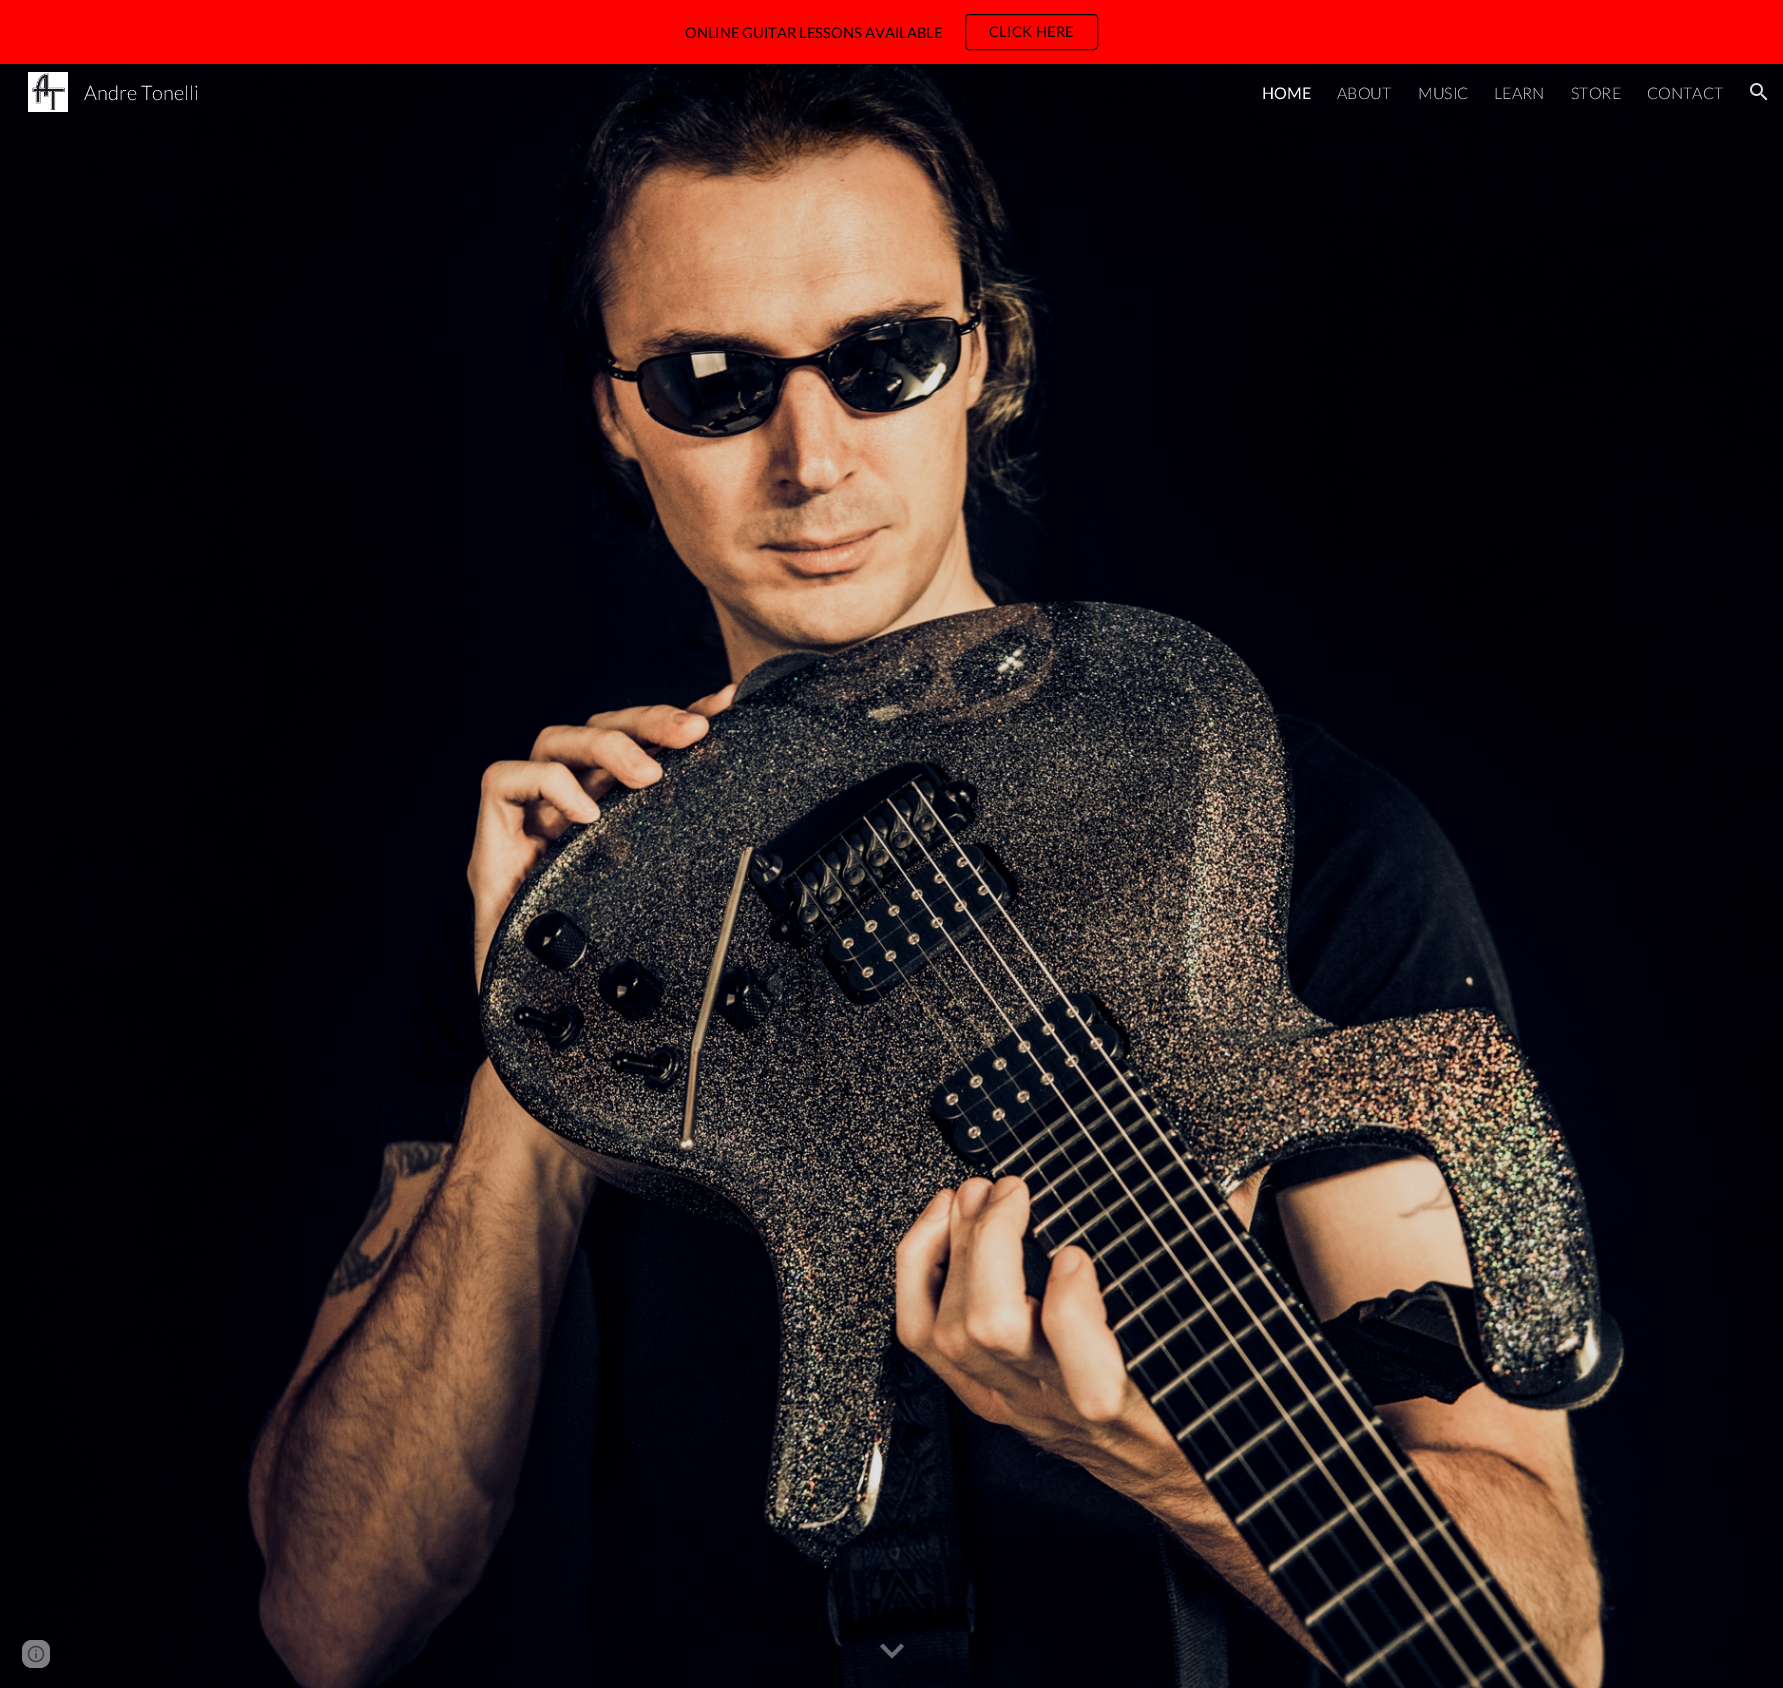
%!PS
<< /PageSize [1783 1688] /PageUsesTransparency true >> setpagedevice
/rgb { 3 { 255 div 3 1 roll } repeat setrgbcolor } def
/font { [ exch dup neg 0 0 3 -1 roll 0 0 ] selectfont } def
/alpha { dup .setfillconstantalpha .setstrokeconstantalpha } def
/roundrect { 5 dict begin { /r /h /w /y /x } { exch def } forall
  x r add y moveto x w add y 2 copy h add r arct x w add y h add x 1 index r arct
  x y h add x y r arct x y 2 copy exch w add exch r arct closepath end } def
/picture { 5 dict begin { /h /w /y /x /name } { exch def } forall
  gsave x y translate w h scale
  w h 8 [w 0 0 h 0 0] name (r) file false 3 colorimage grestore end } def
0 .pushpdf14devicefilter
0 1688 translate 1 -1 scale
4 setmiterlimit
255 255 255 rgb
0 0 1783 1688 rectfill
255 0 0 rgb
0 0 1783 64 rectfill
0 0 0 rgb
965.5 14.5 132 35 3.5 roundrect stroke
(img/3.rgb) 0 64 1783 1624 picture
(img/1.rgb) 28 72 40 40 picture
(img/2.rgb) 1750 83 18 18 picture
0.4 alpha
255 255 255 rgb
883 1643.5 moveto 892 1653 lineto 901 1643.5 lineto 904 1646.5 lineto 892 1658.5 lineto 880 1646.5 lineto closepath fill
0.5 alpha
22 1640 28 28 10 roundrect fill
1 alpha
(img/4.rgb) 27 1645 18 18 picture
/Lato-Regular 14.7 font
0 0 0 rgb
685 38 moveto (ONLINE GUITAR LESSONS AVAILABLE) show
989 37 moveto 0.25 0 (CLICK HERE) ashow
/Lato-Light 20 font
255 255 255 rgb
84 100 moveto (Andre Tonelli) show
/Lato-Regular 16 font
1262 99 moveto (HOME) show
/Lato-Light 16 font
222 222 223 rgb
[
  [(ABOUT) 1337 99]
  [(MUSIC) 1418 99]
  [(LEARN) 1494 99]
  [(STORE) 1571 99]
  [(CONTACT) 1647 99]
] { aload pop moveto show } forall
.poppdf14devicefilter showpage
